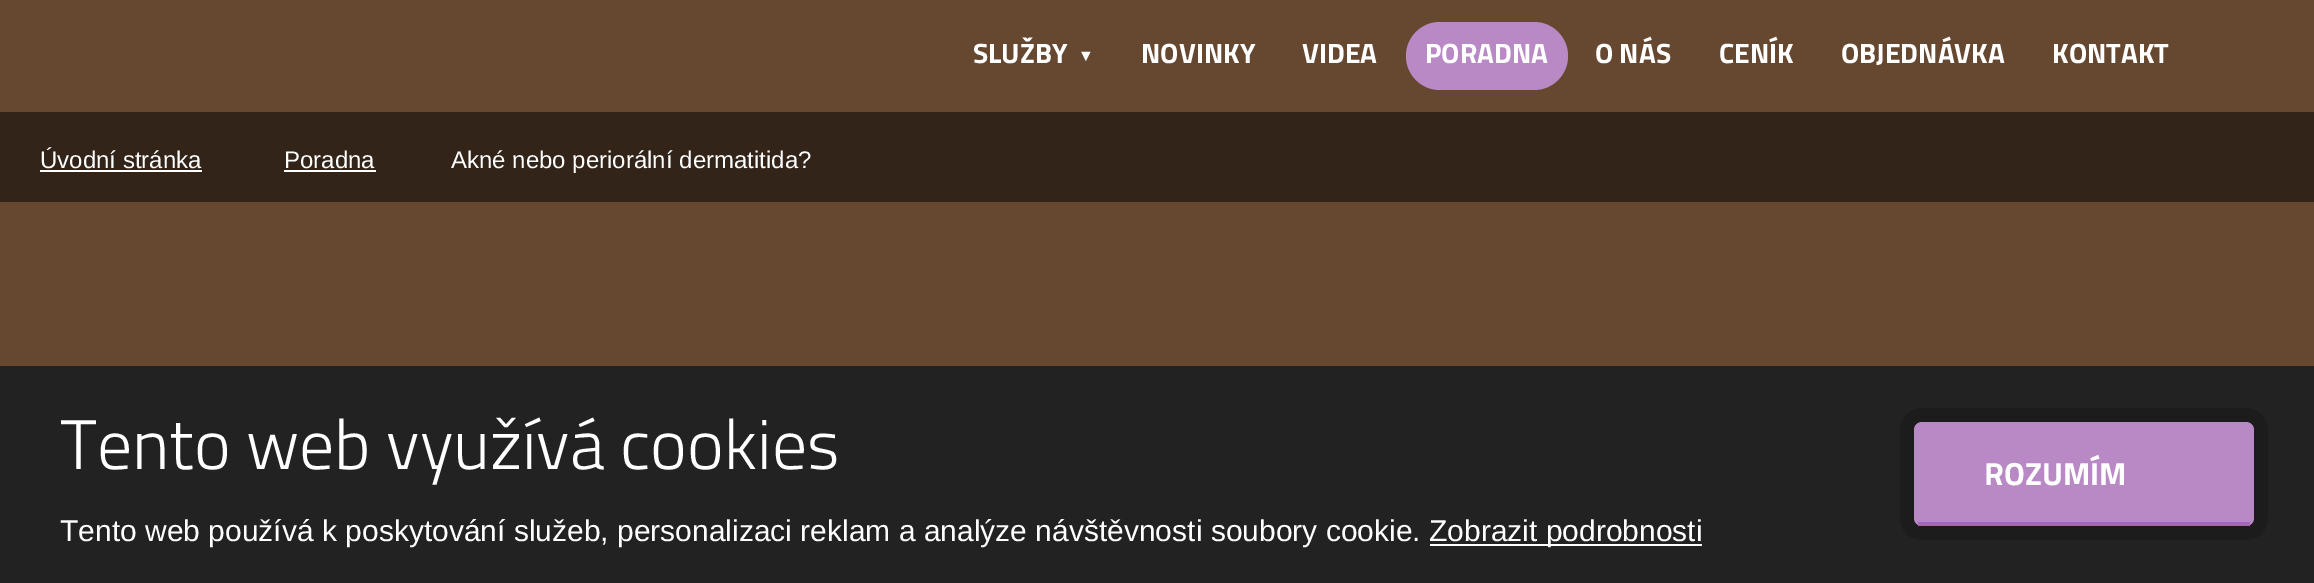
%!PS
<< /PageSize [2314 583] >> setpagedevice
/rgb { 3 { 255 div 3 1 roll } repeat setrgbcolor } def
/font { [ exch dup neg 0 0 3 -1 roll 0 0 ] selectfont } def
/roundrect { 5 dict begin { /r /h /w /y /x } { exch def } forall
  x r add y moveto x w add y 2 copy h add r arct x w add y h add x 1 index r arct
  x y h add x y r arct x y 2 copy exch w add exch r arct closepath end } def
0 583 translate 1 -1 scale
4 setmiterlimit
102 72 49 rgb
0 0 2314 583 rectfill
184 137 197 rgb
1406 22 162 68 34 roundrect fill
[
  [0 112 2314 90 50 36 24]
  [40 170 162 2 255 255 255]
  [284 170 92 2 255 255 255]
  [0 366 2314 217 34 34 34]
  [1430 544 272 2 255 255 255]
] { aload pop rgb rectfill } forall
28 28 28 rgb
14 setlinewidth
1907 415 354 118 15 roundrect stroke
184 137 197 rgb
1914 422 340 104 8 roundrect fill
163 103 180 rgb
1918 522 332 4 rectfill
/TitilliumWeb-Bold 28 font
255 255 255 rgb
973 63 moveto (SLUŽBY) show
/LiberationSerif-Regular 16 font
1078 61 moveto (▼) show
/TitilliumWeb-Bold 28 font
[
  [(NOVINKY) 1141 63]
  [(VIDEA) 1302 63]
  [(PORADNA) 1425 63]
  [(O NÁS) 1595 63]
  [(CENÍK) 1719 63]
  [(OBJEDNÁVKA) 1841 63]
  [(KONTAKT) 2052 63]
] { aload pop moveto show } forall
/LiberationSans-Regular 24 font
[
  [(Úvodní stránka) 40 168]
  [(Poradna) 284 168]
  [(Akné nebo periorální dermatitida?) 451 168]
] { aload pop moveto show } forall
/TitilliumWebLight-Light 70 font
60 469 moveto (Tento web využívá cookies) show
/LiberationSans-Regular 30 font
60 541 moveto (Tento web používá k poskytování služeb, personalizaci reklam a analýze návštěvnosti soubory cookie.) show
1429 541 moveto (Zobrazit podrobnosti) show
/TitilliumWeb-Bold 32 font
1984 485 moveto (ROZUMÍM) show
showpage
